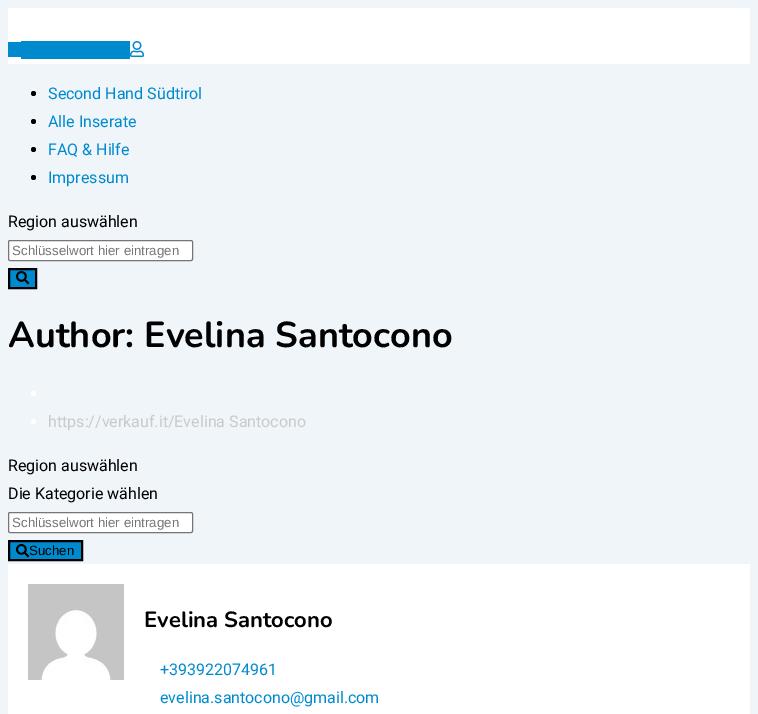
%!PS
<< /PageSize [758 714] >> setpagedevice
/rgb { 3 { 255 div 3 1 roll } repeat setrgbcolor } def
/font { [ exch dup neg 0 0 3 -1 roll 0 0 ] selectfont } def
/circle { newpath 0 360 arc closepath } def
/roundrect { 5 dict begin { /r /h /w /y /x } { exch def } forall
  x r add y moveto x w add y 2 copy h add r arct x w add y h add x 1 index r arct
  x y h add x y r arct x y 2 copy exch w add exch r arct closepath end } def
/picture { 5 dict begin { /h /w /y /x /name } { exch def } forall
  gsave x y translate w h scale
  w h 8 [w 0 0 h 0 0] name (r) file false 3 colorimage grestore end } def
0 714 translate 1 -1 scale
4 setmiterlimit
240 245 250 rgb
0 0 758 714 rectfill
[
  [8 8 742 56 255 255 255]
  [8 42 13 15 0 138 206]
  [21 41 109 18 0 138 206]
] { aload pop rgb rectfill } forall
(img/1.rgb) 130 41 14 16 picture
0 0 0 rgb
33.5 93.5 2.5 circle fill
33.5 121.5 2.5 circle fill
33.5 149.5 2.5 circle fill
33.5 177.5 2.5 circle fill
255 255 255 rgb
8.5 240.5 184 20 1.5 roundrect gsave fill grestore
118 118 118 rgb
stroke
0 138 206 rgb
9 269 moveto 36 269 lineto 36 288 lineto 9 288 lineto closepath gsave fill grestore
0 0 0 rgb
2 setlinewidth
stroke
(img/2.rgb) 16 271 14 14 picture
255 255 255 rgb
33.5 393.5 2.5 circle fill
33.5 421.5 2.5 circle fill
8.5 512.5 184 20 1.5 roundrect gsave fill grestore
118 118 118 rgb
1 setlinewidth
stroke
0 138 206 rgb
9 541 moveto 82 541 lineto 82 560 lineto 9 560 lineto closepath gsave fill grestore
0 0 0 rgb
2 setlinewidth
stroke
255 255 255 rgb
8 564 742 150 rectfill
(img/4.rgb) 28 584 96 96 picture
/Roboto-Regular 16 font
0 138 206 rgb
[
  [(Second Hand Südtirol) 48 99]
  [(Alle Inserate) 48 127]
  [(FAQ & Hilfe) 48 155]
  [(Impressum) 48 183]
] { aload pop moveto show } forall
0 0 0 rgb
8 227 moveto (Region auswählen) show
/LiberationSans-Regular 13.3 font
117 117 117 rgb
12 255 moveto (Schlüsselwort hier eintragen) show
/Nunito-ExtraLight 36 font
0 0 0 rgb
8 347 moveto (Author: Evelina Santocono) show
/Roboto-Regular 16 font
202 202 202 rgb
48 427 moveto (https://verkauf.it/Evelina Santocono) show
0 0 0 rgb
8 471 moveto (Region auswählen) show
8 499 moveto (Die Kategorie wählen) show
/LiberationSans-Regular 13.3 font
117 117 117 rgb
12 527 moveto (Schlüsselwort hier eintragen) show
0 0 0 rgb
29 555 moveto (Suchen) show
(img/3.rgb) 16 544 14 14 picture
/Nunito-ExtraLight 22 font
144 627 moveto (Evelina Santocono) show
/Roboto-Regular 16 font
0 138 206 rgb
160 675 moveto (+393922074961) show
160 703 moveto (evelina.santocono@gmail.com) show
showpage
